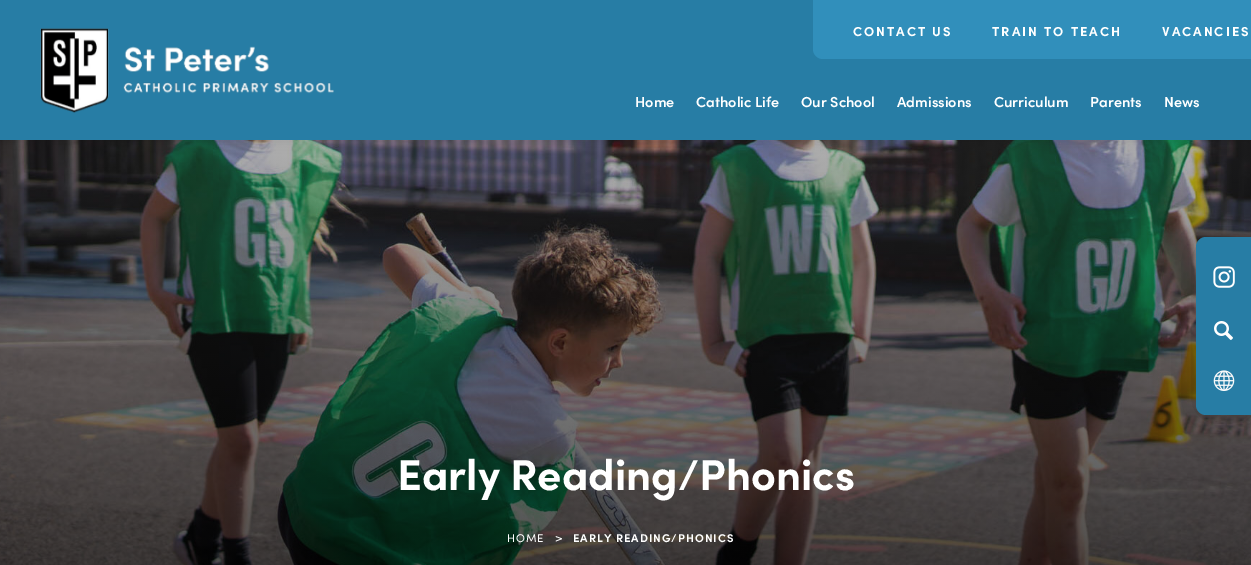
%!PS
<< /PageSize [1251 565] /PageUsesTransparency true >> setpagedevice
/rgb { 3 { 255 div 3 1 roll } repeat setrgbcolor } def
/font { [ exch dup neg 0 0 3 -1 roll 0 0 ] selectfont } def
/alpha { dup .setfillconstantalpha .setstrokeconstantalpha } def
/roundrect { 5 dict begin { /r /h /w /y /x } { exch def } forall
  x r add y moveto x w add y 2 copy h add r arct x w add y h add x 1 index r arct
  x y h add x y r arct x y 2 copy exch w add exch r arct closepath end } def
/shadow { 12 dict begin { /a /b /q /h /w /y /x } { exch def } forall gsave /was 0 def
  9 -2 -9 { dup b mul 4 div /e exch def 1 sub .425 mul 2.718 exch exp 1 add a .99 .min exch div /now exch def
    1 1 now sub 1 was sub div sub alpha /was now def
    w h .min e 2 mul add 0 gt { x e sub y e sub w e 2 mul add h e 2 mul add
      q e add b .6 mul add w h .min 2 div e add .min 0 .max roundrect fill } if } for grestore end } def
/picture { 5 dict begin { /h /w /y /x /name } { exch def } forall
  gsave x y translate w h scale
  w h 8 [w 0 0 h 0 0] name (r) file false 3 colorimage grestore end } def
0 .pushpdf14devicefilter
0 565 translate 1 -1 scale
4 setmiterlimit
255 255 255 rgb
0 0 1251 565 rectfill
(img/5.rgb) 0 140 1251 425 picture
0 0 0 rgb
0 1 1251 140 0 5.5 0.1 shadow
39 125 165 rgb
0 0 1251 140 rectfill
(img/1.rgb) 40 28 294 85 picture
49 143 187 rgb
813 0 moveto 1251 0 lineto 1251 59 lineto 823 59 lineto 817.5 59 813 54.5 813 49 curveto closepath fill
0 0 0 rgb
1196 241 55 178 10 20 0.25 shadow
39 125 165 rgb
1206 237 moveto 1251 237 lineto 1251 415 lineto 1206 415 lineto 1200.5 415 1196 410.5 1196 405 curveto 1196 247 lineto 1196 241.5 1200.5 237 1206 237 curveto closepath fill
(img/2.rgb) 1213 266 22 22 picture
(img/3.rgb) 1214 321 19 19 picture
(img/4.rgb) 1213 370 22 21 picture
/Sofia-Bold 13 font
255 255 255 rgb
853 36 moveto 2 0 (CONTACT US) ashow
992 36 moveto 2 0 (TRAIN TO TEACH) ashow
1162 36 moveto 2 0 (VACANCIES) ashow
/Sofia-SemiBold 14.5 font
[
  [(Home) 635 107]
  [(Catholic Life) 696 107]
  [(Our School) 801 107]
  [(Admissions) 897 107]
  [(Curriculum) 994 107]
  [(Parents) 1090 107]
  [(News) 1164 107]
] { aload pop moveto show } forall
/Sofia-Bold 43.25 font
397 490 moveto (Early Reading/Phonics) show
/Sofia-Regular 11.25 font
507 542 moveto 1 0 (HOME) ashow
/Sofia-Regular 12 font
555 542 moveto 1 0 (>) ashow
/Sofia-Bold 11.25 font
573 542 moveto 1 0 (EARLY READING/PHONICS) ashow
.poppdf14devicefilter showpage
